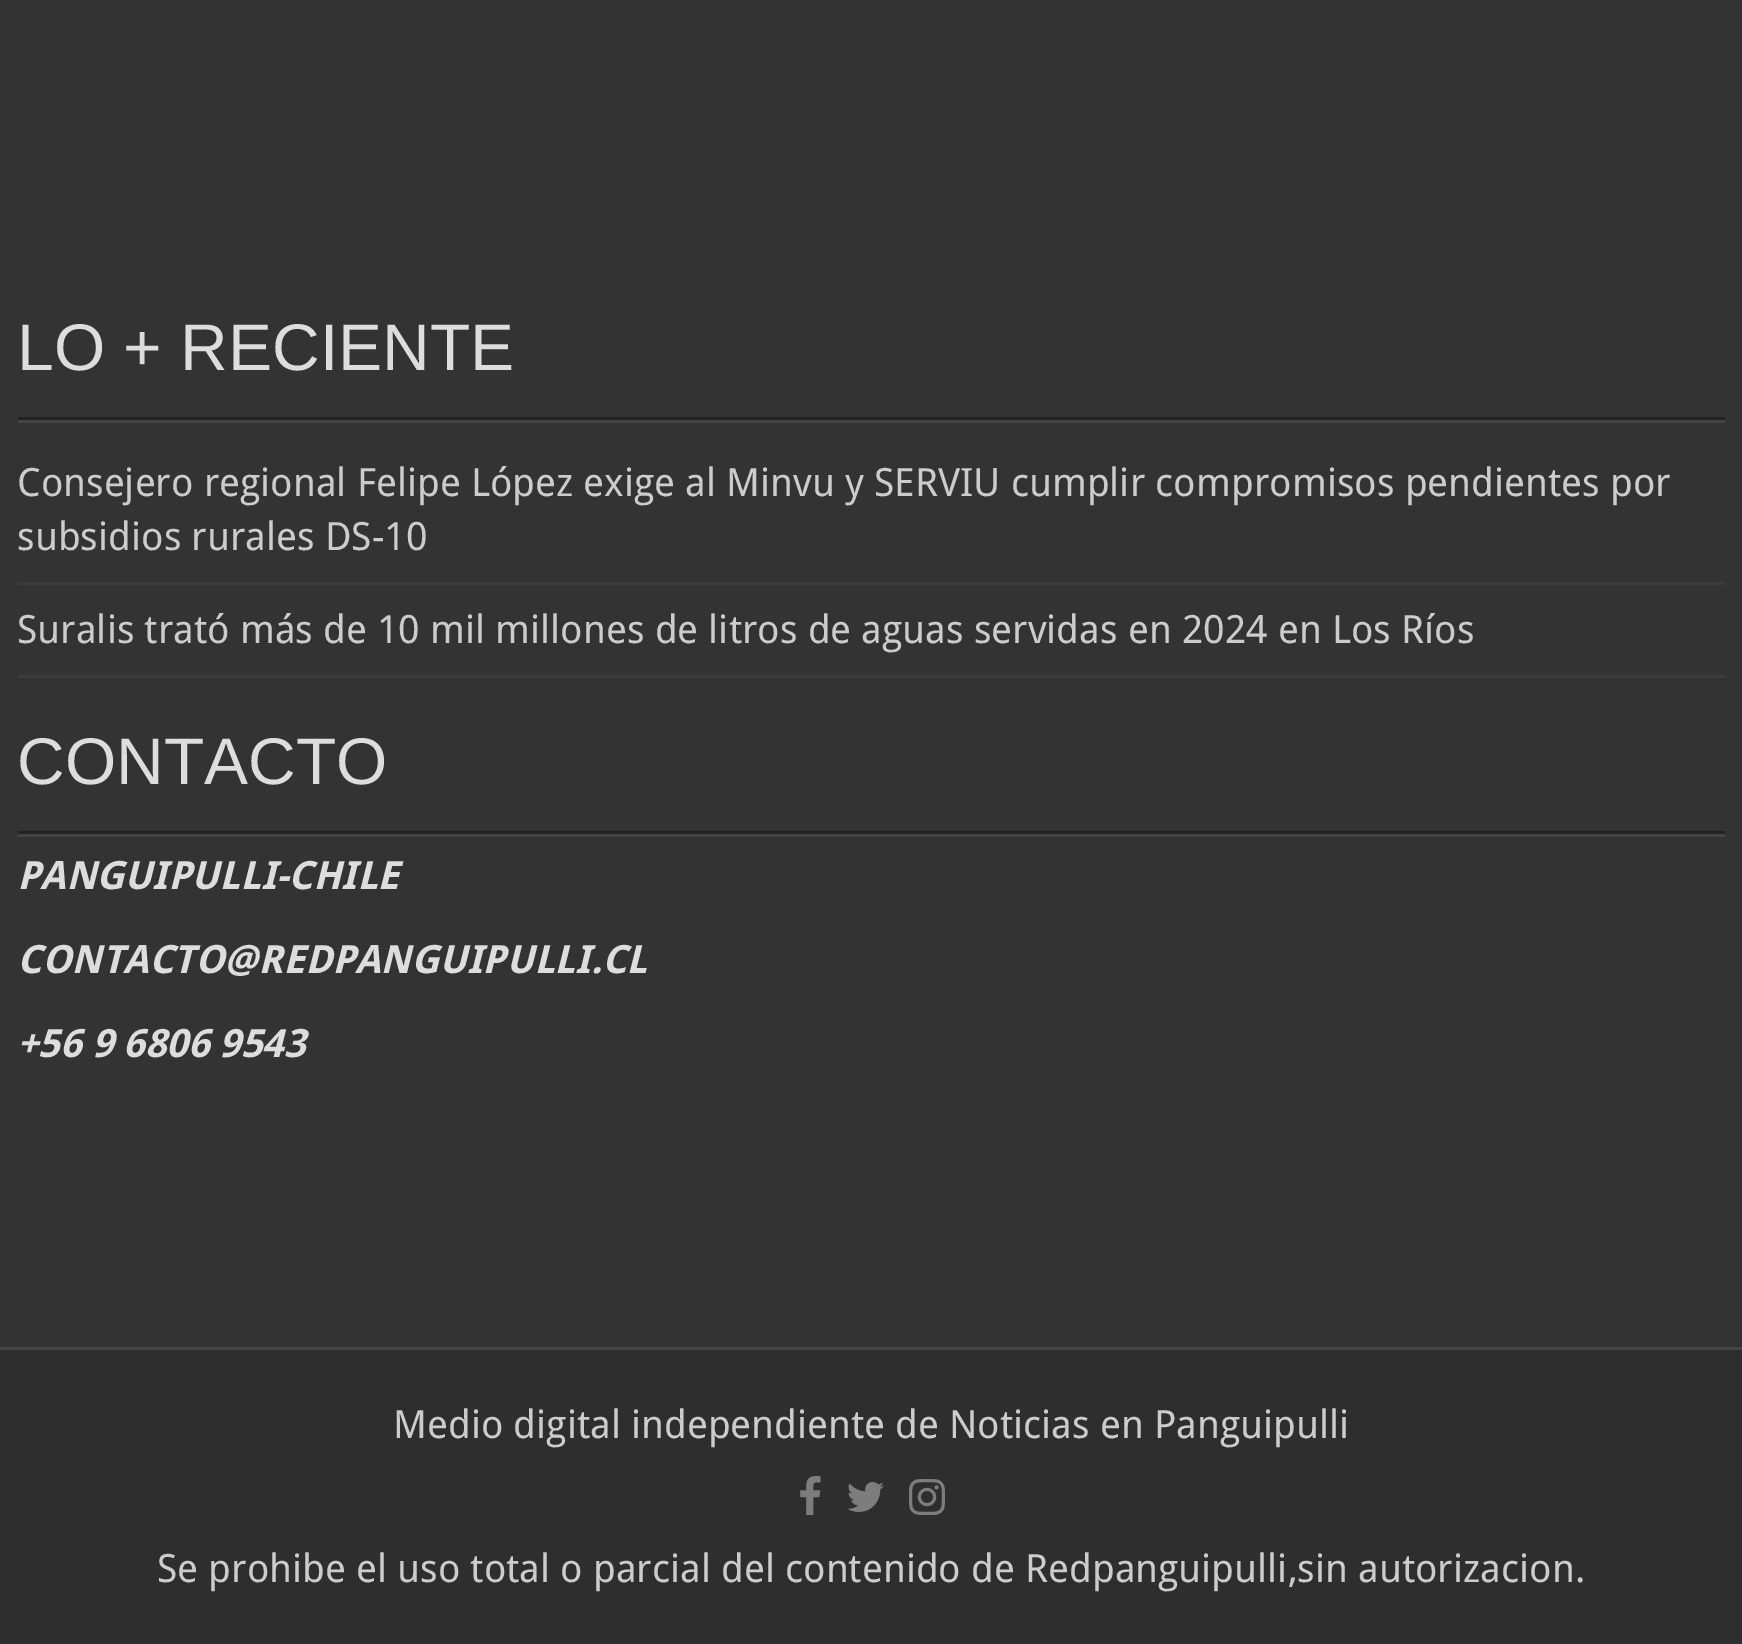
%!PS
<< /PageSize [1742 1644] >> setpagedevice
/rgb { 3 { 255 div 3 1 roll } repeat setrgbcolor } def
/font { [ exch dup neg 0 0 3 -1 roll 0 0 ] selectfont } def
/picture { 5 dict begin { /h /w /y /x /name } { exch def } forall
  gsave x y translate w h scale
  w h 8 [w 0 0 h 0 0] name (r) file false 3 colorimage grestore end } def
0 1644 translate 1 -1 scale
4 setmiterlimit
51 51 51 rgb
0 0 1742 1644 rectfill
[
  [18 417 1707 3 34 34 34]
  [18 420 1707 3 68 68 68]
  [18 582 1707 3 60 60 60]
  [18 675 1707 3 60 60 60]
  [18 831 1707 3 34 34 34]
  [18 834 1707 3 68 68 68]
  [0 1350 1742 294 46 46 46]
  [0 1347 1742 3 68 68 68]
] { aload pop rgb rectfill } forall
(img/1.rgb) 800 1476 21 39 picture
(img/2.rgb) 847 1482 37 30 picture
(img/3.rgb) 909 1479 36 36 picture
/LiberationSans-Regular 66 font
221 221 221 rgb
17 370 moveto (LO + RECIENTE) show
/DroidSans-Regular 39 font
204 204 204 rgb
[
  [(Consejero regional Felipe López exige al Minvu y SERVIU cumplir compromisos pendientes por) 17 496]
  [(subsidios rurales DS-10) 17 550]
  [(Suralis trató más de 10 mil millones de litros de aguas servidas en 2024 en Los Ríos) 17 643]
] { aload pop moveto show } forall
/LiberationSans-Regular 66 font
221 221 221 rgb
17 784 moveto (CONTACTO) show
/DroidSans-BoldItalic 39 font
[
  [(PANGUIPULLI-CHILE) 17 889]
  [(CONTACTO@REDPANGUIPULLI.CL) 17 973]
  [(+56 9 6806 9543) 17 1057]
] { aload pop moveto show } forall
/DroidSans-Regular 39 font
204 204 204 rgb
393 1438 moveto (Medio digital independiente de Noticias en Panguipulli) show
157 1582 moveto (Se prohibe el uso total o parcial del contenido de Redpanguipulli,sin autorizacion.) show
showpage
